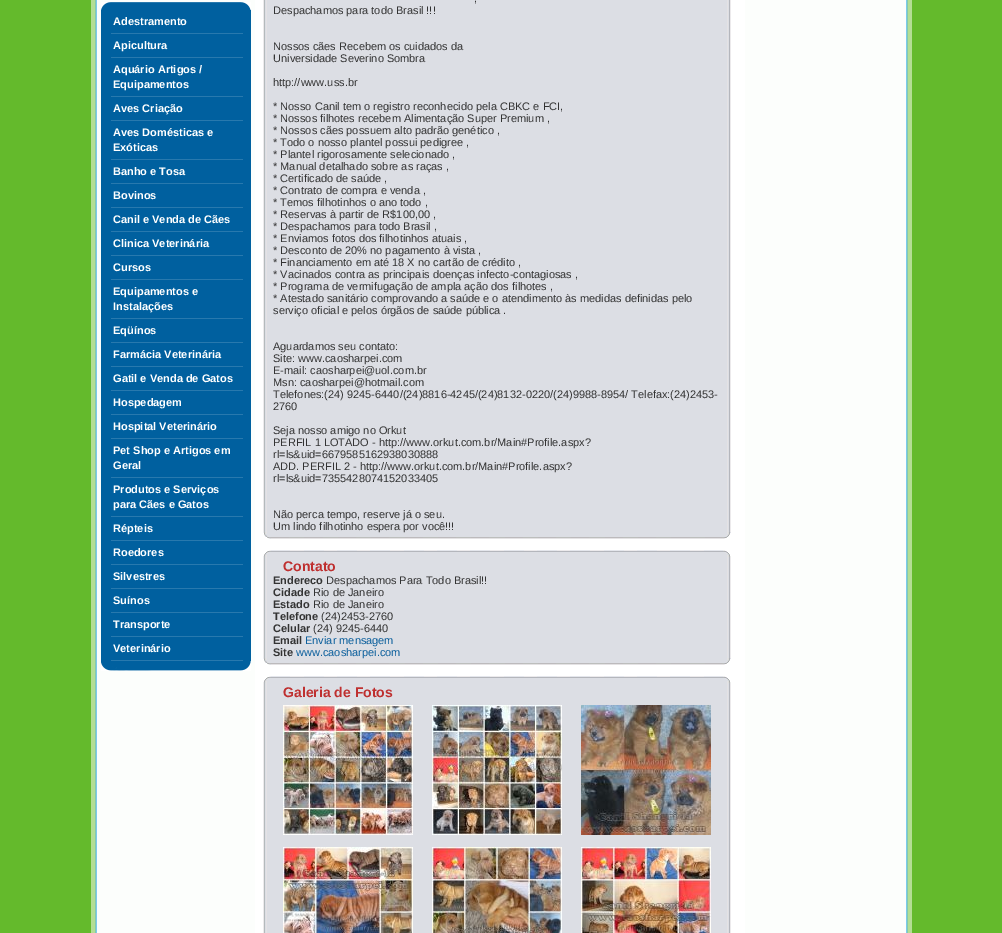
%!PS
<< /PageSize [1002 933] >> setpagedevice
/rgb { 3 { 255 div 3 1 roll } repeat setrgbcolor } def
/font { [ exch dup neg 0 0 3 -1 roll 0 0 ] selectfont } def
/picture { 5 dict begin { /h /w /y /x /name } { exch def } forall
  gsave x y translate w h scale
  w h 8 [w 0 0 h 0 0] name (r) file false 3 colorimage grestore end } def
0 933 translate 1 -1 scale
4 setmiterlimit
100 186 44 rgb
0 0 1002 933 rectfill
(img/1.rgb) 91 0 821 933 picture
(img/2.rgb) 101 2 150 8 picture
[
  [101 10 150 651 0 96 159]
  [111 33 132 1 40 121 174]
  [111 57 132 1 40 121 174]
  [111 96 132 1 40 121 174]
  [111 120 132 1 40 121 174]
  [111 159 132 1 40 121 174]
  [111 183 132 1 40 121 174]
  [111 207 132 1 40 121 174]
  [111 231 132 1 40 121 174]
  [111 255 132 1 40 121 174]
  [111 279 132 1 40 121 174]
  [111 318 132 1 40 121 174]
  [111 342 132 1 40 121 174]
  [111 366 132 1 40 121 174]
  [111 390 132 1 40 121 174]
  [111 414 132 1 40 121 174]
  [111 438 132 1 40 121 174]
  [111 477 132 1 40 121 174]
  [111 516 132 1 40 121 174]
  [111 540 132 1 40 121 174]
  [111 564 132 1 40 121 174]
  [111 588 132 1 40 121 174]
  [111 612 132 1 40 121 174]
  [111 636 132 1 40 121 174]
  [111 660 132 1 40 121 174]
] { aload pop rgb rectfill } forall
(img/3.rgb) 101 661 150 10 picture
255 255 255 rgb
255 0 490 933 rectfill
(img/4.rgb) 263 0 468 532 picture
(img/5.rgb) 263 532 468 7 picture
(img/6.rgb) 263 550 468 24 picture
(img/7.rgb) 263 574 468 84 picture
(img/5.rgb) 263 658 468 7 picture
(img/6.rgb) 263 676 468 24 picture
(img/8.rgb) 263 700 468 233 picture
(img/9.rgb) 283 705 130 130 picture
(img/10.rgb) 432 705 130 130 picture
(img/11.rgb) 581 705 130 130 picture
(img/12.rgb) 283 847 130 86 picture
(img/13.rgb) 432 847 130 86 picture
(img/14.rgb) 581 847 130 86 picture
/LiberationSans-Bold 11 font
[
  [(Adestramento) 113 25]
  [(Apicultura) 113 49]
  [(Aquário Artigos /) 113 73]
  [(Equipamentos) 113 88]
  [(Aves Criação) 113 112]
  [(Aves Domésticas e) 113 136]
  [(Exóticas) 113 151]
  [(Banho e Tosa) 113 175]
  [(Bovinos) 113 199]
  [(Canil e Venda de Cães) 113 223]
  [(Clinica Veterinária) 113 247]
  [(Cursos) 113 271]
  [(Equipamentos e) 113 295]
  [(Instalações) 113 310]
  [(Eqüínos) 113 334]
  [(Farmácia Veterinária) 113 358]
  [(Gatil e Venda de Gatos) 113 382]
  [(Hospedagem) 113 406]
  [(Hospital Veterinário) 113 430]
  [(Pet Shop e Artigos em) 113 454]
  [(Geral) 113 469]
  [(Produtos e Serviços) 113 493]
  [(para Cães e Gatos) 113 508]
  [(Répteis) 113 532]
  [(Roedores) 113 556]
  [(Silvestres) 113 580]
  [(Suínos) 113 604]
  [(Transporte) 113 628]
  [(Veterinário) 113 652]
] { aload pop moveto show } forall
/LiberationSans-Regular 11 font
51 51 51 rgb
[
  [(,) 474 2]
  [(Despachamos para todo Brasil !!!) 273 14]
  [(Nossos cães Recebem os cuidados da) 273 50]
  [(Universidade Severino Sombra) 273 62]
  [(http://www.uss.br) 273 86]
  [(* Nosso Canil tem o registro reconhecido pela CBKC e FCI,) 273 110]
  [(* Nossos filhotes recebem Alimentação Super Premium ,) 273 122]
  [(* Nossos cães possuem alto padrão genético ,) 273 134]
  [(* Todo o nosso plantel possui pedigree ,) 273 146]
  [(* Plantel rigorosamente selecionado ,) 273 158]
  [(* Manual detalhado sobre as raças ,) 273 170]
  [(* Certificado de saúde ,) 273 182]
  [(* Contrato de compra e venda ,) 273 194]
  [(* Temos filhotinhos o ano todo ,) 273 206]
  [(* Reservas à partir de R$100,00 ,) 273 218]
  [(* Despachamos para todo Brasil ,) 273 230]
  [(* Enviamos fotos dos filhotinhos atuais ,) 273 242]
  [(* Desconto de 20% no pagamento à vista ,) 273 254]
  [(* Financiamento em até 18 X no cartão de crédito ,) 273 266]
  [(* Vacinados contra as principais doenças infecto-contagiosas ,) 273 278]
  [(* Programa de vermifugação de ampla ação dos filhotes ,) 273 290]
  [(* Atestado sanitário comprovando a saúde e o atendimento às medidas definidas pelo) 273 302]
  [(serviço oficial e pelos órgãos de saúde pública .) 273 314]
  [(Aguardamos seu contato:) 273 350]
  [(Site: www.caosharpei.com) 273 362]
  [(E-mail: caosharpei@uol.com.br) 273 374]
  [(Msn: caosharpei@hotmail.com) 273 386]
  [(Telefones:\(24\) 9245-6440/\(24\)8816-4245/\(24\)8132-0220/\(24\)9988-8954/ Telefax:\(24\)2453-) 273 398]
  [(2760) 273 410]
  [(Seja nosso amigo no Orkut) 273 434]
  [(PERFIL 1 LOTADO - http://www.orkut.com.br/Main#Profile.aspx?) 273 446]
  [(rl=ls&uid=6679585162938030888) 273 458]
  [(ADD. PERFIL 2 - http://www.orkut.com.br/Main#Profile.aspx?) 273 470]
  [(rl=ls&uid=7355428074152033405) 273 482]
  [(Não perca tempo, reserve já o seu.) 273 518]
  [(Um lindo filhotinho espera por você!!!) 273 530]
] { aload pop moveto show } forall
/LiberationSans-Bold 14 font
191 48 48 rgb
283 571 moveto (Contato) show
/LiberationSans-Bold 11 font
51 51 51 rgb
273 584 moveto (Endereco) show
/LiberationSans-Regular 11 font
326 584 moveto (Despachamos Para Todo Brasil!!) show
/LiberationSans-Bold 11 font
273 596 moveto (Cidade) show
/LiberationSans-Regular 11 font
313 596 moveto (Rio de Janeiro) show
/LiberationSans-Bold 11 font
273 608 moveto (Estado) show
/LiberationSans-Regular 11 font
313 608 moveto (Rio de Janeiro) show
/LiberationSans-Bold 11 font
273 620 moveto (Telefone) show
/LiberationSans-Regular 11 font
321 620 moveto (\(24\)2453-2760) show
/LiberationSans-Bold 11 font
273 632 moveto (Celular) show
/LiberationSans-Regular 11 font
313 632 moveto (\(24\) 9245-6440) show
/LiberationSans-Bold 11 font
273 644 moveto (Email) show
/LiberationSans-Regular 11 font
10 94 156 rgb
305 644 moveto (Enviar mensagem) show
/LiberationSans-Bold 11 font
51 51 51 rgb
273 656 moveto (Site) show
/LiberationSans-Regular 11 font
10 94 156 rgb
296 656 moveto (www.caosharpei.com) show
/LiberationSans-Bold 14 font
191 48 48 rgb
283 697 moveto (Galeria de Fotos) show
showpage
